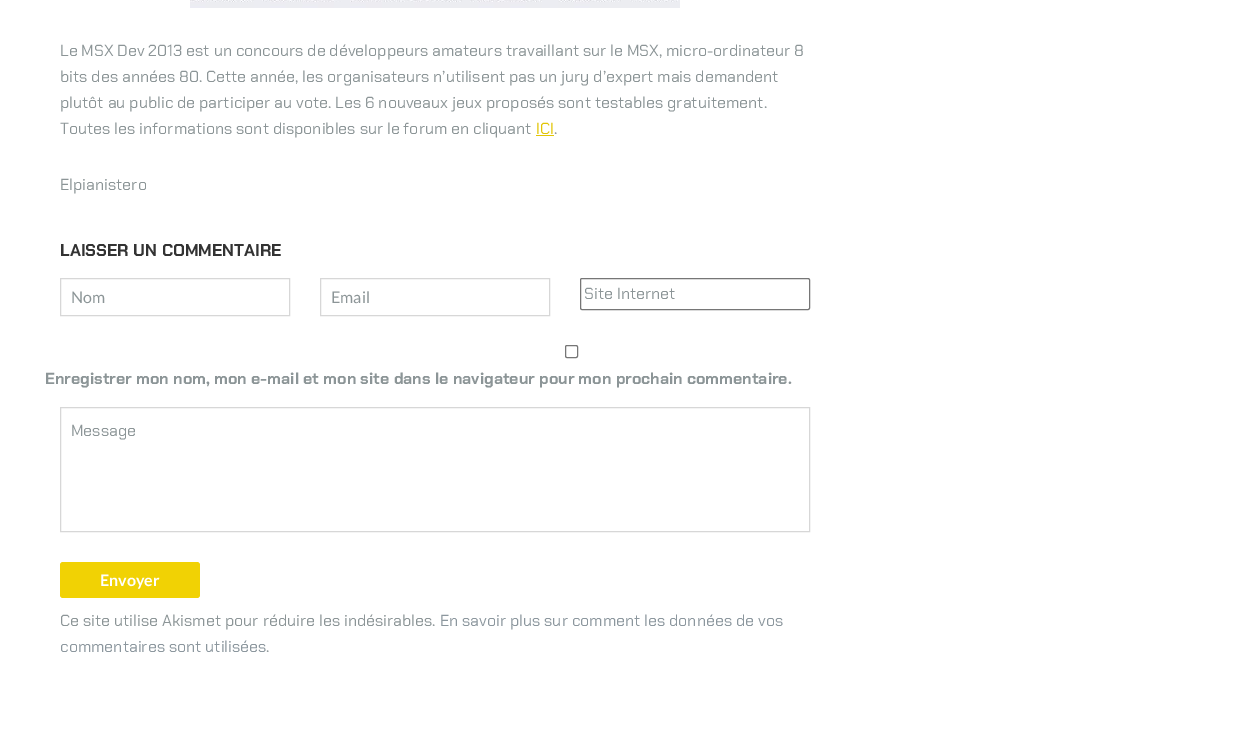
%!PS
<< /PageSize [1260 735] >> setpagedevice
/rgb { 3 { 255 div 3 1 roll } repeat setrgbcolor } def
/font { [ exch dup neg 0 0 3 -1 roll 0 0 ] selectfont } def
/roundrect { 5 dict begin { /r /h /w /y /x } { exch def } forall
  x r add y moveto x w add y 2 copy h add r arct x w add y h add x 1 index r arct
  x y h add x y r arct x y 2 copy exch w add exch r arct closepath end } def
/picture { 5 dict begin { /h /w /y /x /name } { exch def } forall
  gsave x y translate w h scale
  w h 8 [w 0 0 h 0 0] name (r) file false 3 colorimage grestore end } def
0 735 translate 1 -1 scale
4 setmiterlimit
255 255 255 rgb
0 0 1260 735 rectfill
(img/1.rgb) 190 0 490 8 picture
226 197 4 rgb
536 135 18 1 rectfill
215 215 215 rgb
60.5 278.5 229 37 rectstroke
320.5 278.5 229 37 rectstroke
118 118 118 rgb
580.5 278.5 229 31 1.5 roundrect stroke
565.5 345.5 12 12 1.5 roundrect stroke
215 215 215 rgb
60.5 407.5 749 124 rectstroke
241 210 4 rgb
60 562 140 36 3 roundrect fill
/ChakraPetch-Regular 16 font
140 149 151 rgb
[
  [(Le MSX Dev 2013 est un concours de développeurs amateurs travaillant sur le MSX, micro-ordinateur 8) 60 56]
  [(bits des années 80. Cette année, les organisateurs n’utilisent pas un jury d’expert mais demandent) 60 82]
  [(plutôt au public de participer au vote. Les 6 nouveaux jeux proposés sont testables gratuitement.) 60 108]
  [(Toutes les informations sont disponibles sur le forum en cliquant) 60 134]
] { aload pop moveto show } forall
226 197 4 rgb
536 134 moveto (ICI) show
140 149 151 rgb
554 134 moveto (.) show
60 190 moveto (Elpianistero) show
/ChakraPetch-Bold 17 font
51 51 51 rgb
60 256 moveto (LAISSER UN COMMENTAIRE) show
/Lato-Regular 16 font
140 149 151 rgb
71 303 moveto (Nom) show
331 303 moveto (Email) show
/ChakraPetch-Regular 16 font
584 299 moveto (Site Internet) show
/ChakraPetch-Bold 16 font
45 384 moveto (Enregistrer mon nom, mon e-mail et mon site dans le navigateur pour mon prochain commentaire.) show
/ChakraPetch-Regular 16 font
71 436 moveto (Message) show
/Lato-Bold 16 font
255 255 255 rgb
100 586 moveto (Envoyer) show
/ChakraPetch-Regular 16 font
140 149 151 rgb
60 626 moveto (Ce site utilise Akismet pour réduire les indésirables.) show
140 151 158 rgb
440 626 moveto (En savoir plus sur comment les données de vos) show
60 652 moveto (commentaires sont utilisées) show
140 149 151 rgb
266 652 moveto (.) show
showpage
